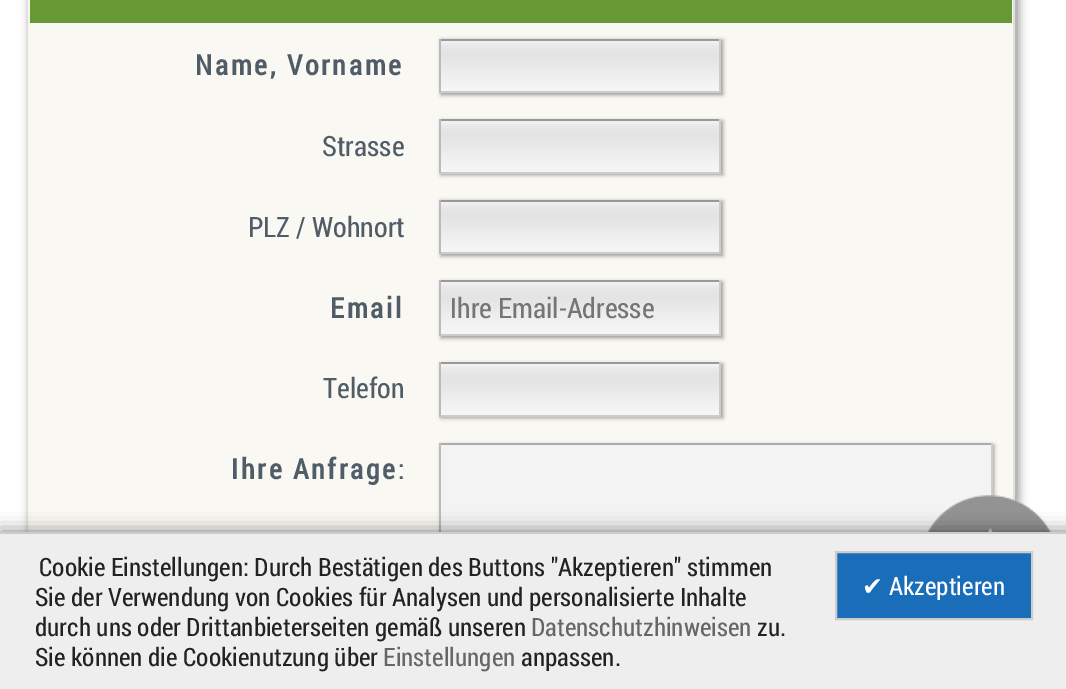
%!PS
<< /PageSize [1066 689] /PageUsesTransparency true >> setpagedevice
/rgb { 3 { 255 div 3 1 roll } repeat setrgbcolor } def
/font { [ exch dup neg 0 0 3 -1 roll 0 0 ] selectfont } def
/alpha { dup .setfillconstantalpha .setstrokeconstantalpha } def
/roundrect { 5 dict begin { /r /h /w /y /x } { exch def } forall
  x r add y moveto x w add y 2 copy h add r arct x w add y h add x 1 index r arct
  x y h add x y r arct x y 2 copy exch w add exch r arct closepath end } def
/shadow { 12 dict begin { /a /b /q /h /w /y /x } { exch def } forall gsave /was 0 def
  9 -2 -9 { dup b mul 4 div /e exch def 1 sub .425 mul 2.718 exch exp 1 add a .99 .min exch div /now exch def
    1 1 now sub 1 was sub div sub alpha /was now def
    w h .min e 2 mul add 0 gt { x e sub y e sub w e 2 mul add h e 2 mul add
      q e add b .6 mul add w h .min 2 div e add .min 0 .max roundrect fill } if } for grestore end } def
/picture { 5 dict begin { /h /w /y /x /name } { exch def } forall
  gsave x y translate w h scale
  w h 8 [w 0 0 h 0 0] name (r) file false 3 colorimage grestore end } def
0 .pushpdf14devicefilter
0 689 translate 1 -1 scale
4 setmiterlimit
255 255 255 rgb
0 0 1066 689 rectfill
0 0 0 rgb
30 -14 989 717 0 4.5 0.4 shadow
250 248 242 rgb
28 0 985 532 rectfill
224 224 224 rgb
2 setlinewidth
27 -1 987 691 rectstroke
102 153 51 rgb
30 0 982 23 rectfill
153 153 153 rgb
441 40 282 55 0 2 1 shadow
(img/1.rgb) 441 41 278 50 picture
[
  [439 39 282 2 153 153 153]
  [719 39 2 54 204 204 204]
  [439 91 282 2 204 204 204]
  [439 39 2 54 187 187 187]
] { aload pop rgb rectfill } forall
153 153 153 rgb
441 121 282 54 0 2 1 shadow
(img/2.rgb) 441 121 278 51 picture
[
  [439 119 282 2 153 153 153]
  [719 119 2 54 204 204 204]
  [439 172 282 2 204 204 204]
  [439 119 2 54 187 187 187]
] { aload pop rgb rectfill } forall
153 153 153 rgb
441 201 282 55 0 2 1 shadow
(img/1.rgb) 441 202 278 50 picture
[
  [439 200 282 2 153 153 153]
  [719 200 2 54 204 204 204]
  [439 252 282 2 204 204 204]
  [439 200 2 54 187 187 187]
] { aload pop rgb rectfill } forall
153 153 153 rgb
441 282 282 56 0 2 1 shadow
(img/3.rgb) 441 282 278 52 picture
[
  [439 280 282 2 153 153 153]
  [719 280 2 56 204 204 204]
  [439 334 282 2 204 204 204]
  [439 280 2 56 187 187 187]
] { aload pop rgb rectfill } forall
153 153 153 rgb
441 364 282 54 0 2 1 shadow
(img/4.rgb) 441 364 278 51 picture
[
  [439 362 282 2 153 153 153]
  [719 362 2 55 204 204 204]
  [439 415 282 2 204 204 204]
  [439 362 2 55 187 187 187]
] { aload pop rgb rectfill } forall
153 153 153 rgb
441 445 553 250 0 2 1 shadow
[
  [441 445 550 87 243 243 243]
  [439 443 553 2 170 170 170]
  [991 443 2 54 204 204 204]
  [439 443 2 89 187 187 187]
] { aload pop rgb rectfill } forall
(img/5.rgb) 927 495 125 37 picture
0 0 0 rgb
0 532 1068 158 0 9 0.5 shadow
238 238 238 rgb
0 534 1066 155 rectfill
204 204 204 rgb
0 532 1066 2 rectfill
26 110 185 rgb
836 552 moveto 1032 552 lineto 1032 619 lineto 836 619 lineto closepath gsave fill grestore
204 204 204 rgb
stroke
/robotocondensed-Bold 28 font
80 93 104 rgb
195 75 moveto 2.75 0 (Name, Vorname) ashow
/robotocondensed-Regular 28 font
322 156 moveto (Strasse) show
248 237 moveto (PLZ / Wohnort) show
/robotocondensed-Bold 28 font
330 318 moveto 2.75 0 (Email) ashow
/robotocondensed-Regular 28 font
117 117 117 rgb
450 318 moveto (Ihre Email-Adresse) show
80 93 104 rgb
323 398 moveto (Telefon) show
/robotocondensed-Bold 28 font
231 479 moveto 2.75 0 (Ihre Anfrage) ashow
/robotocondensed-Regular 28 font
398 479 moveto (:) show
/robotocondensed-Regular 25.2 font
34 34 34 rgb
39 576 moveto (Cookie Einstellungen: Durch Bestätigen des Buttons "Akzeptieren" stimmen) show
35 606 moveto (Sie der Verwendung von Cookies für Analysen und personalisierte Inhalte) show
/DejaVuSans-Regular 25.2 font
255 255 255 rgb
862 595 moveto (✔) show
/robotocondensed-Regular 25.2 font
889 595 moveto (Akzeptieren) show
34 34 34 rgb
35 636 moveto (durch uns oder Drittanbieterseiten gemäß unseren) show
102 102 102 rgb
531 636 moveto (Datenschutzhinweisen) show
34 34 34 rgb
757 636 moveto (zu.) show
35 666 moveto (Sie können die Cookienutzung über) show
102 102 102 rgb
383 666 moveto (Einstellungen) show
34 34 34 rgb
521 666 moveto (anpassen.) show
.poppdf14devicefilter showpage
